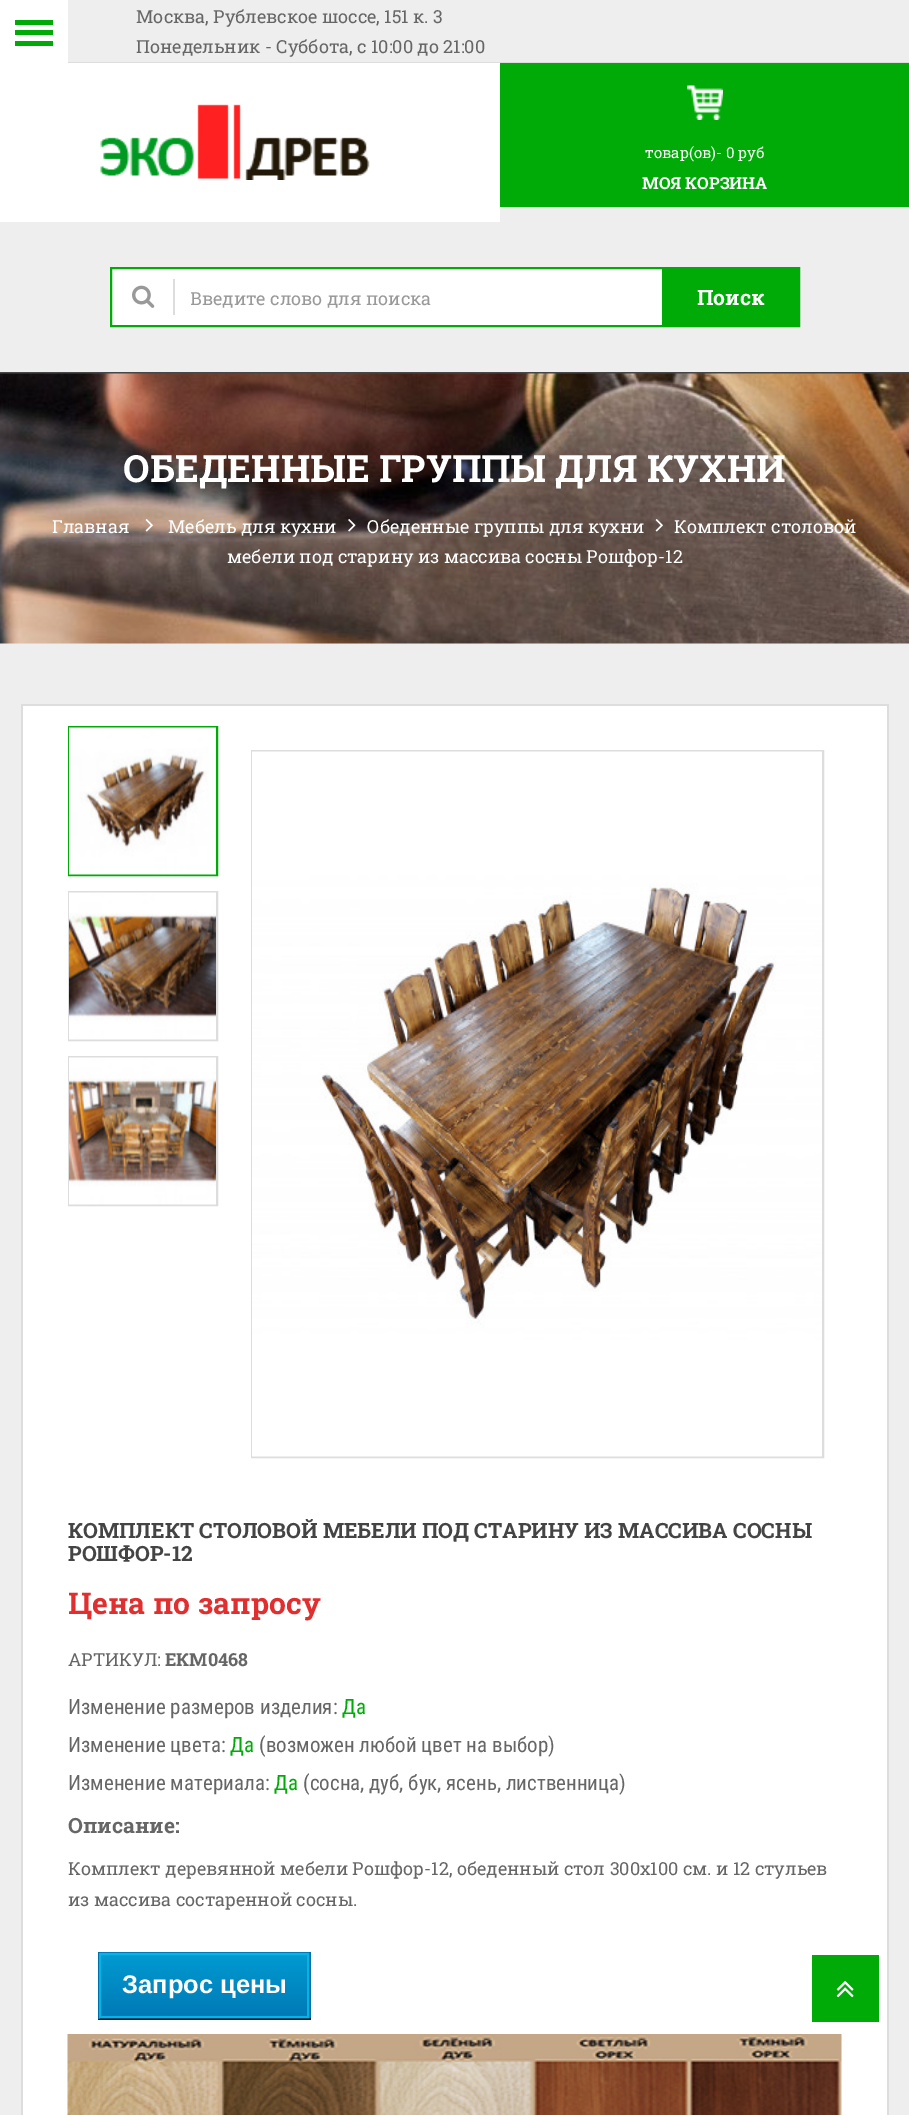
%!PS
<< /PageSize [909 2115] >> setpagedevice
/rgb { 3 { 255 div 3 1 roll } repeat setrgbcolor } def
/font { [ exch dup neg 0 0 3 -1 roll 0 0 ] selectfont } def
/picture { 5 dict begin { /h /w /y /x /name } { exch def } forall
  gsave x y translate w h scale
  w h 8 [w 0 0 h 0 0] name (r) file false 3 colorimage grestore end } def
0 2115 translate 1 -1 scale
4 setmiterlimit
238 238 238 rgb
0 0 909 2115 rectfill
[
  [0 372 909 2 71 71 71]
  [0 0 68 63 255 255 255]
  [15 20 38 5 0 171 7]
  [15 30 38 5 0 171 7]
  [15 41 38 5 0 171 7]
  [68 62 841 1 221 221 221]
  [0 63 500 159 255 255 255]
] { aload pop rgb rectfill } forall
(img/1.rgb) 100 104 270 76 picture
0 171 7 rgb
500 63 409 144 rectfill
(img/2.rgb) 687 85 36 35 picture
255 255 255 rgb
112 269 550 56 rectfill
0 171 7 rgb
2 setlinewidth
111 268 688 58 rectstroke
221 221 221 rgb
173 279 2 36 rectfill
(img/3.rgb) 132 285 23 23 picture
0 171 7 rgb
662 269 136 56 rectfill
(img/4.rgb) 0 373 909 271 picture
(img/5.rgb) 145 519 8 13 picture
(img/6.rgb) 348 519 8 13 picture
(img/7.rgb) 655 519 8 13 picture
[
  [23 706 864 1409 255 255 255]
  [23 704 864 2 221 221 221]
  [21 704 2 1411 221 221 221]
] { aload pop rgb rectfill } forall
0 171 7 rgb
69 727 148 148 rectstroke
(img/8.rgb) 69 727 147 148 picture
221 221 221 rgb
69 892 148 148 rectstroke
(img/9.rgb) 69 892 147 148 picture
69 1057 148 148 rectstroke
(img/10.rgb) 69 1057 147 148 picture
252 751 571 706 rectstroke
(img/11.rgb) 252 751 570 706 picture
[
  [887 704 2 1411 221 221 221]
  [98 1952 213 1 0 121 182]
  [309 1952 2 67 0 111 168]
  [98 2018 213 2 1 39 64]
  [98 1952 2 67 0 111 168]
] { aload pop rgb rectfill } forall
gsave 101 1955 moveto 307 1955 lineto 307 2016 lineto 101 2016 lineto closepath clip newpath
<< /ShadingType 2 /ColorSpace /DeviceRGB /Coords [204 1955 204 2016] /Extend [true true] /Function << /FunctionType 2 /Domain [0 1] /C0 [0 0.604 0.816] /C1 [0 0.478 0.718] /N 1 >> >> shfill grestore
6 178 230 rgb
100 1954 208 63 rectstroke
(img/12.rgb) 67 2034 775 81 picture
0 171 7 rgb
812 1955 67 67 rectfill
(img/13.rgb) 836 1981 18 17 picture
/RobotoSlab-Regular 18 font
102 102 102 rgb
136 23 moveto (Москва, Рублевское шоссе, 151 к. 3) show
136 53 moveto (Понедельник - Суббота, с 10:00 до 21:00) show
/RobotoSlab-Regular 15 font
255 255 255 rgb
645 158 moveto (товар\(ов\)- 0 руб) show
/RobotoSlab-Bold 16.5 font
642 189 moveto (МОЯ КОРЗИНА) show
gsave
191 285 607 24 rectclip
/RobotoSlab-Regular 18 font
153 153 153 rgb
190 305 moveto (Введите слово для поиска) show
grestore
/RobotoSlab-Bold 21 font
697 305 moveto (Поиск) show
/RobotoSlab-Bold 37.5 font
123 482 moveto (ОБЕДЕННЫЕ ГРУППЫ ДЛЯ КУХНИ) show
/RobotoSlab-Regular 18 font
[
  [(Главная) 52 533]
  [(Мебель для кухни) 168 533]
  [(Обеденные группы для кухни) 367 533]
  [(Комплект столовой) 674 533]
  [(мебели под старину из массива сосны Рошфор-12) 227 563]
] { aload pop moveto show } forall
/RobotoSlab-Bold 21 font
68 68 68 rgb
68 1538 moveto (КОМПЛЕКТ СТОЛОВОЙ МЕБЕЛИ ПОД СТАРИНУ ИЗ МАССИВА СОСНЫ) show
68 1561 moveto (РОШФОР-12) show
/RobotoSlab-Bold 30 font
225 47 47 rgb
68 1614 moveto (Цена по запросу) show
/RobotoSlab-Regular 18 font
102 102 102 rgb
68 1666 moveto (АРТИКУЛ:) show
/RobotoSlab-Bold 18 font
165 1666 moveto (ЕКМ0468) show
/RobotoCondensed-Regular 21 font
68 1714 moveto (Изменение размеров изделия:) show
0 171 7 rgb
342 1714 moveto (Да) show
102 102 102 rgb
68 1752 moveto (Изменение цвета:) show
0 171 7 rgb
230 1752 moveto (Да) show
102 102 102 rgb
259 1752 moveto (\(возможен любой цвет на выбор\)) show
68 1790 moveto (Изменение материала:) show
0 171 7 rgb
274 1790 moveto (Да) show
102 102 102 rgb
303 1790 moveto (\(сосна, дуб, бук, ясень, лиственница\)) show
/RobotoSlab-Bold 21 font
68 1833 moveto (Описание:) show
/RobotoSlab-Regular 18 font
68 1875 moveto (Комплект деревянной мебели Рошфор-12, обеденный стол 300х100 см. и 12 стульев) show
68 1906 moveto (из массива состаренной сосны.) show
/LiberationSans-Bold 25.5 font
255 255 255 rgb
122 1993 moveto (Запрос цены) show
showpage
